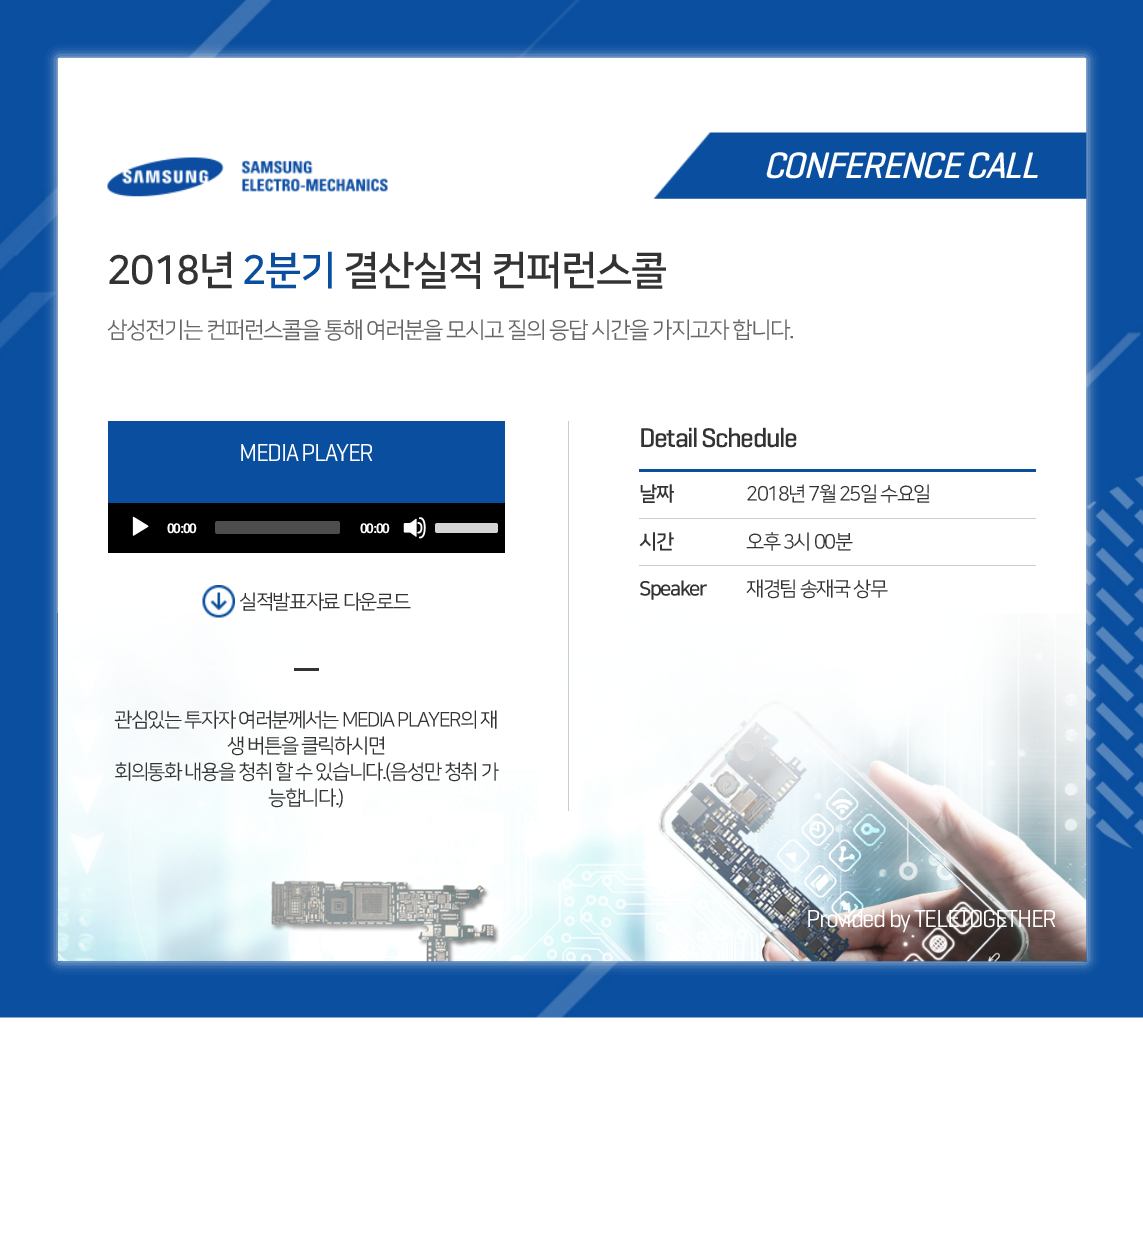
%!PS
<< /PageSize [1143 1253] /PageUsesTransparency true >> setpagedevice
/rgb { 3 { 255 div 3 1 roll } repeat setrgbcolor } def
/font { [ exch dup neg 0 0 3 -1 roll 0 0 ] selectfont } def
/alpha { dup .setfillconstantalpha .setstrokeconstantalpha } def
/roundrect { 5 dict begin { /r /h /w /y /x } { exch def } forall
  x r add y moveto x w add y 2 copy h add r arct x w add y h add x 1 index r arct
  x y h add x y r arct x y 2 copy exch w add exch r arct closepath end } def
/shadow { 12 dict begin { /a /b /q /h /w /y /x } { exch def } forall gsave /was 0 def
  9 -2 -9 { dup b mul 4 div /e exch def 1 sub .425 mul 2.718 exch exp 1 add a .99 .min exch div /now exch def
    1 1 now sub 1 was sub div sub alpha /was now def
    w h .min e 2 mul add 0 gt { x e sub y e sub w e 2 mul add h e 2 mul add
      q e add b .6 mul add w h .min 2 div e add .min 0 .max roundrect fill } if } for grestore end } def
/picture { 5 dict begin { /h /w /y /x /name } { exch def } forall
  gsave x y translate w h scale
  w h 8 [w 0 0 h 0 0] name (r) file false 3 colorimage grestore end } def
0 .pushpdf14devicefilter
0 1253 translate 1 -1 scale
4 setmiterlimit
255 255 255 rgb
0 0 1143 1253 rectfill
(img/1.rgb) 0 0 1143 1018 picture
240 240 240 rgb
58 58 1028 903 0 6 1 shadow
255 255 255 rgb
58 58 1028 903 rectfill
(img/2.rgb) 57 613 1030 349 picture
(img/3.rgb) 107 157 281 40 picture
(img/4.rgb) 653 132 434 67 picture
[
  [568 421 1 390 204 204 204]
  [108 421 397 82 10 79 159]
  [108 503 397 50 0 0 0]
] { aload pop rgb rectfill } forall
(img/5.rgb) 132 516 17 20 picture
77 77 77 rgb
215 521 125 13 2.5 roundrect fill
(img/6.rgb) 403 517 23 22 picture
40 40 40 rgb
435 523 63 10 2.5 roundrect fill
0.8 alpha
255 255 255 rgb
435 523 63 10 2.5 roundrect fill
1 alpha
(img/7.rgb) 202 585 33 33 picture
[
  [294 668 25 3 51 51 51]
  [639 469 397 3 10 79 159]
  [639 518 397 1 204 204 204]
  [639 565 397 1 204 204 204]
] { aload pop rgb rectfill } forall
/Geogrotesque-MediumItalic 37.5 font
255 255 255 rgb
763 178 moveto -1.5 0 (CONFERENCE CALL) ashow
/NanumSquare-Bold 40 font
51 51 51 rgb
107 283 moveto -1.5 0 (2018년) ashow
10 79 159 rgb
242 283 moveto -1.5 0 (2분기) ashow
51 51 51 rgb
343 283 moveto -1.5 0 (결산실적 컨퍼런스콜) ashow
/NanumSquare-Regular 22.5 font
103 103 103 rgb
107 337 moveto -1.5 0 (삼성전기는 컨퍼런스콜을 통해 여러분을 모시고 질의 응답 시간을 가지고자 합니다.) ashow
/Geogrotesque-Regular 25 font
255 255 255 rgb
239 461 moveto -1.5 0 (MEDIA PLAYER) ashow
/LiberationSans-Bold 14 font
167 533 moveto -1.5 0 (00:00) ashow
360 533 moveto -1.5 0 (00:00) ashow
/NanumSquare-Regular 20 font
51 51 51 rgb
239 608 moveto -1.5 0 (실적발표자료 다운로드) ashow
114 726 moveto -1.5 0 (관심있는 투자자 여러분께서는 MEDIA PLAYER의 재) ashow
227 752 moveto -1.5 0 (생 버튼을 클릭하시면) ashow
114 778 moveto -1.5 0 (회의통화 내용을 청취 할 수 있습니다.\(음성만 청취 가) ashow
268 804 moveto -1.5 0 (능합니다.\)) ashow
/Geogrotesque-Medium 27.5 font
639 447 moveto -1.5 0 (Detail Schedule) ashow
/NanumSquare-Bold 20 font
639 500 moveto -1.5 0 (날짜) ashow
/NanumSquare-Regular 20 font
746 500 moveto -1.5 0 (2018년 7월 25일 수요일) ashow
/NanumSquare-Bold 20 font
639 548 moveto -1.5 0 (시간) ashow
/NanumSquare-Regular 20 font
746 548 moveto -1.5 0 (오후 3시 00분) ashow
/NanumSquare-Bold 20 font
639 595 moveto -1.5 0 (Speaker) ashow
/NanumSquare-Regular 20 font
746 595 moveto -1.5 0 (재경팀 송재국 상무) ashow
/Geogrotesque-Regular 25 font
255 255 255 rgb
806 927 moveto -1.5 0 (Provided by TELETOGETHER) ashow
.poppdf14devicefilter showpage
